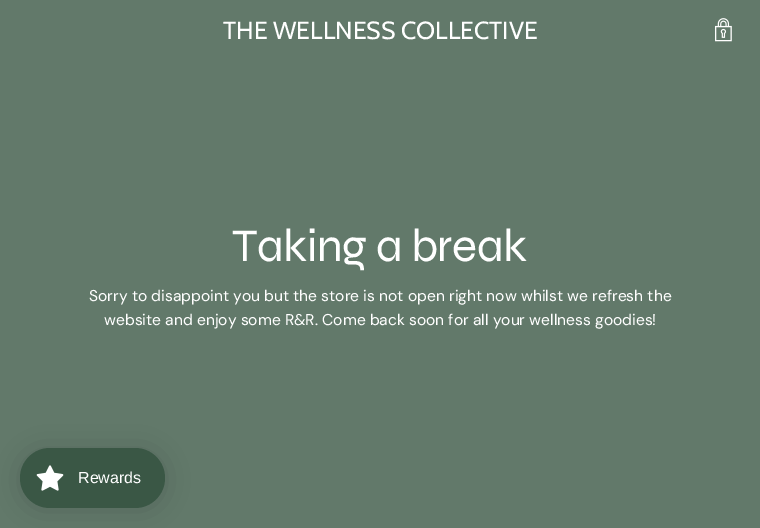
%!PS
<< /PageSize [760 528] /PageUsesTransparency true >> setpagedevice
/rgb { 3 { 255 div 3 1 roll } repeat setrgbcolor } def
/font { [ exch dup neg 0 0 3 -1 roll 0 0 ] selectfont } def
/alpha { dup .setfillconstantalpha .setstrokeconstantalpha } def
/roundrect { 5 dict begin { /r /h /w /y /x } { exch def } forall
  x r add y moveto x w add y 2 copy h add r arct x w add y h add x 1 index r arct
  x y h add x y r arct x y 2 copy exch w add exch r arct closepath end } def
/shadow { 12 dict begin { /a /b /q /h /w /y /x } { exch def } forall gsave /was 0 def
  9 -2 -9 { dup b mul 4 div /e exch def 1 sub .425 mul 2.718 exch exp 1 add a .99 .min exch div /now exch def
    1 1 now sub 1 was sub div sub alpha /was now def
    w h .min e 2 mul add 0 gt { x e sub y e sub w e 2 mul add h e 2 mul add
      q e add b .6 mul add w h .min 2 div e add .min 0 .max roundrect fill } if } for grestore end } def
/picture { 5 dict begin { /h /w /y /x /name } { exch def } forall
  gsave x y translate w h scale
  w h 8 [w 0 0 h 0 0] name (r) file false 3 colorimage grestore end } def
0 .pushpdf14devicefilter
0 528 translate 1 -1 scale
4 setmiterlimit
98 121 106 rgb
0 0 760 528 rectfill
(img/1.rgb) 715 18 17 24 picture
0 0 0 rgb
20 450 145 60 30 15 0.15 shadow
58 87 69 rgb
20 448 145 60 30 roundrect fill
(img/2.rgb) 36 465 28 26 picture
/Cabin-Regular 24.8 font
255 255 255 rgb
223 39 moveto (THE WELLNESS COLLECTIVE) show
/Syne-Regular 46.5 font
232 261 moveto -0.5 0 (Taking a break) ashow
/DMSans-Regular 15.65 font
89 301 moveto (Sorry to disappoint you but the store is not open right now whilst we refresh the) show
104 325 moveto (website and enjoy some R&R. Come back soon for all your wellness goodies!) show
/LiberationSans-Regular 16 font
78 483 moveto (Rewards) show
.poppdf14devicefilter showpage
